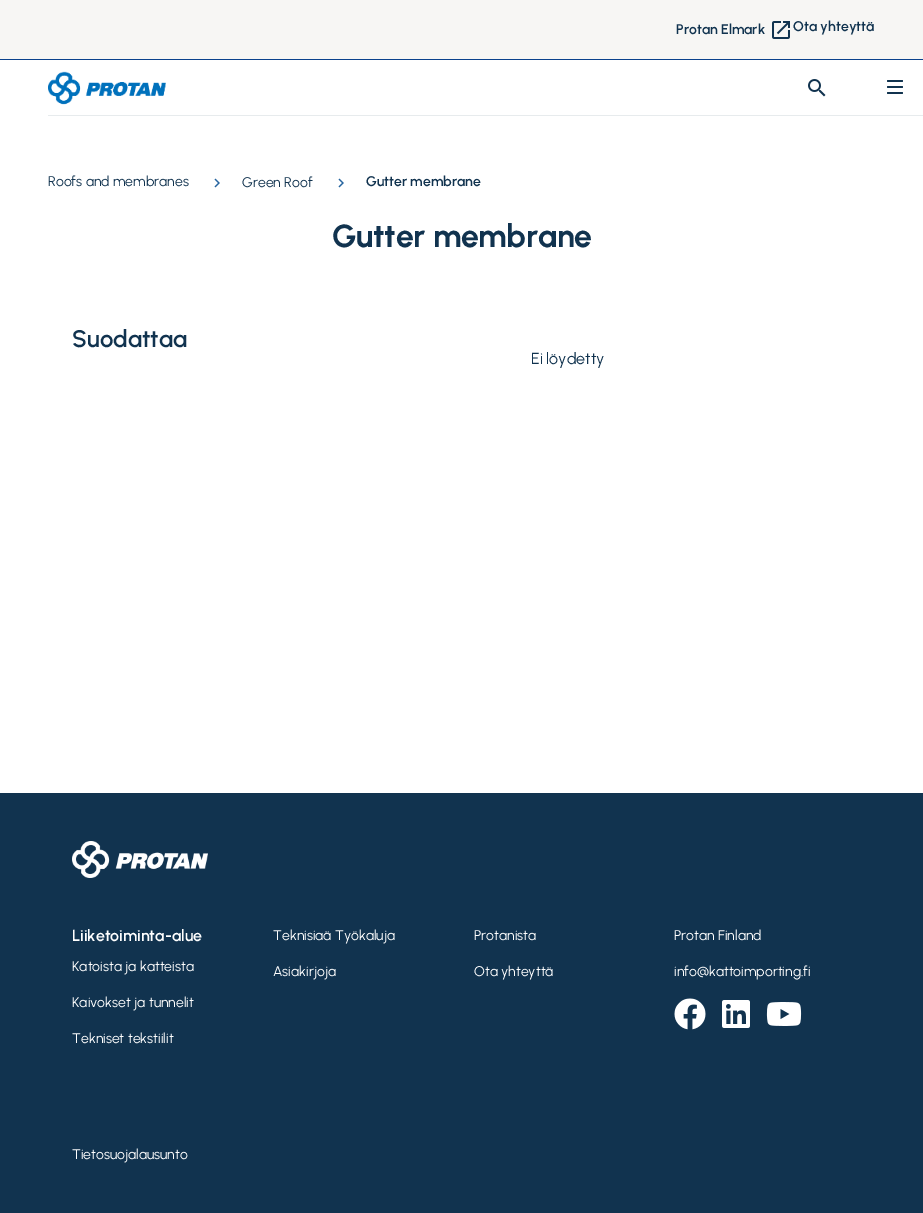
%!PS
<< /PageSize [923 1213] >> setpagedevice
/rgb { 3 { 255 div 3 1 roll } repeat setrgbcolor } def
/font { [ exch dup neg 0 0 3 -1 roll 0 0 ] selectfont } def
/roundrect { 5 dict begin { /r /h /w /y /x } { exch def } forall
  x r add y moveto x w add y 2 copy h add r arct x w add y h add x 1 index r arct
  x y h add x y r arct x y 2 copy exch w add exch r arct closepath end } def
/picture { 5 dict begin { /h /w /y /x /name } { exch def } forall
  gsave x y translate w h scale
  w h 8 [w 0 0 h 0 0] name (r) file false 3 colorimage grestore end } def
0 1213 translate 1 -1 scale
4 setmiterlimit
255 255 255 rgb
0 0 923 1213 rectfill
247 246 244 rgb
0 0 923 59 rectfill
10 65 140 rgb
0 59 923 1 rectfill
(img/1.rgb) 772 21 18 18 picture
(img/2.rgb) 48 71 118 34 picture
(img/3.rgb) 808 79 18 18 picture
17 51 79 rgb
887 80 16 2 1 roundrect fill
887 86 16 2 1 roundrect fill
887 92 16 2 1 roundrect fill
231 235 237 rgb
48 115 875 1 rectfill
(img/4.rgb) 214 178 6 10 picture
(img/4.rgb) 338 178 6 10 picture
17 51 79 rgb
0 793 923 420 rectfill
(img/5.rgb) 72 841 136 37 picture
(img/6.rgb) 674 998 32 32 picture
(img/7.rgb) 722 1000 28 28 picture
(img/8.rgb) 766 1002 36 24 picture
/Urbanist-SemiBold 14 font
676 34 moveto (Protan Elmark) show
793 31 moveto (Ota yhteyttä) show
/Urbanist-Regular 14 font
48 186 moveto (Roofs and membranes) show
242 187 moveto (Green Roof) show
/Urbanist-SemiBold 14 font
366 186 moveto (Gutter membrane) show
/Urbanist-Bold 32 font
332 247 moveto -0.3 0 (Gutter membrane) ashow
/Urbanist-SemiBold 24 font
72 347 moveto (Suodattaa) show
/Urbanist-Regular 16 font
531 364 moveto (Ei löydetty) show
/Urbanist-SemiBold 16 font
255 255 255 rgb
72 941 moveto (Liiketoiminta-alue) show
/Urbanist-Regular 14 font
[
  [(Katoista ja katteista) 72 971]
  [(Kaivokset ja tunnelit) 72 1007]
  [(Tekniset tekstiilit) 72 1043]
  [(Teknisiaä Työkaluja) 273 940]
  [(Asiakirjoja) 273 976]
  [(Protanista) 474 940]
  [(Ota yhteyttä) 474 976]
  [(Protan Finland) 674 940]
  [(info@kattoimporting.fi) 674 976]
  [(Tietosuojalausunto) 72 1159]
] { aload pop moveto show } forall
showpage
